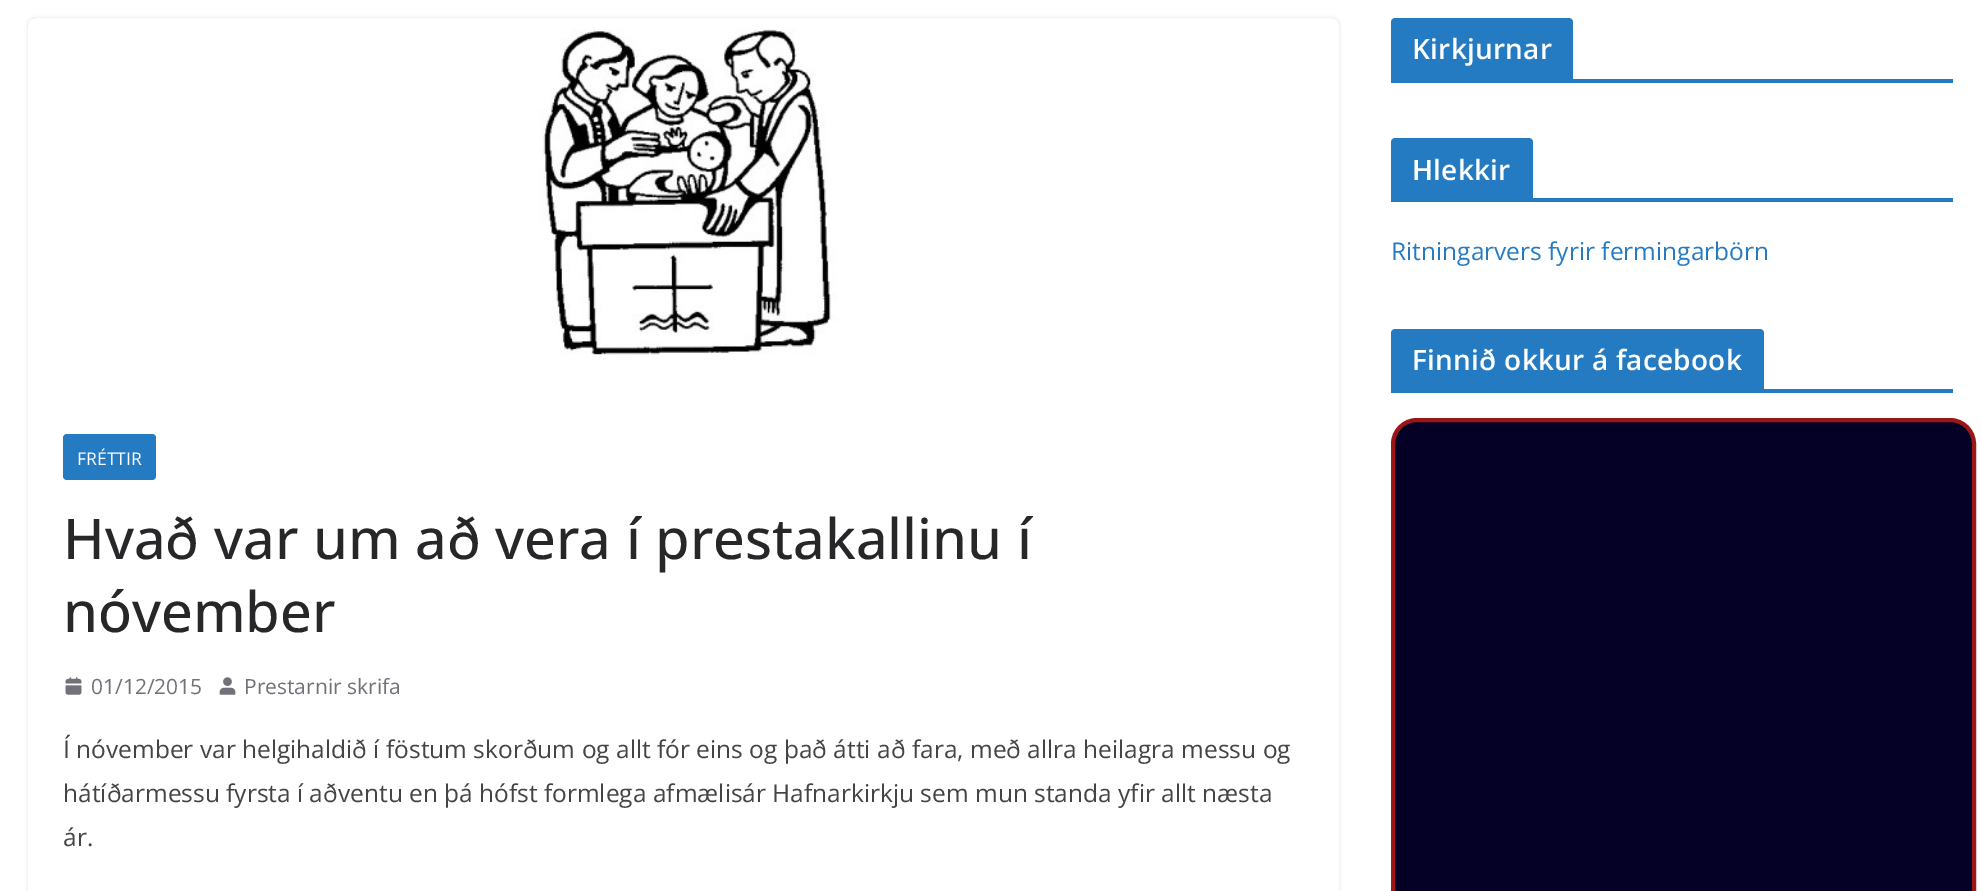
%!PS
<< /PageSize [1981 891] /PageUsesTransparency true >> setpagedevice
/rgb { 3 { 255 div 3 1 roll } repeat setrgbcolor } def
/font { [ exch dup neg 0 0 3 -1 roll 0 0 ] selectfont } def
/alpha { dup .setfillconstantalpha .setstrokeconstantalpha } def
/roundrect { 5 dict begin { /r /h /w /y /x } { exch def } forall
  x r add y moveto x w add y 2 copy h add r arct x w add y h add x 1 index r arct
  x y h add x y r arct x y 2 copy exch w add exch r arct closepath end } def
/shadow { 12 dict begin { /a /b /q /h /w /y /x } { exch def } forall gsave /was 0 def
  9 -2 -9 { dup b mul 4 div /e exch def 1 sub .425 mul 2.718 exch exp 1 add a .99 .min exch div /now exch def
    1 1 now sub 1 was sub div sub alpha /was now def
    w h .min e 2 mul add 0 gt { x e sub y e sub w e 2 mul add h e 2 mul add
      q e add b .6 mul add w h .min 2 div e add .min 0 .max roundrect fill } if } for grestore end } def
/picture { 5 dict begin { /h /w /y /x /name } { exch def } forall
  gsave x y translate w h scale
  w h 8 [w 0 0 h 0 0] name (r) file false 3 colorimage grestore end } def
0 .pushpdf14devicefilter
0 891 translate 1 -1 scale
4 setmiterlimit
255 255 255 rgb
0 0 1981 891 rectfill
37 123 193 rgb
1391 79 562 4 rectfill
1395 18 moveto 1569 18 lineto 1571 18 1573 20 1573 22 curveto 1573 79 lineto 1391 79 lineto 1391 22 lineto 1391 20 1393 18 1395 18 curveto closepath fill
1391 198 562 4 rectfill
1395 138 moveto 1529 138 lineto 1531 138 1533 140 1533 142 curveto 1533 198 lineto 1391 198 lineto 1391 142 lineto 1391 140 1393 138 1395 138 curveto closepath fill
1391 389 562 4 rectfill
1395 329 moveto 1760 329 lineto 1762 329 1764 331 1764 333 curveto 1764 389 lineto 1391 389 lineto 1391 333 lineto 1391 331 1393 329 1395 329 curveto closepath fill
5 0 38 rgb
1393 420 581 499 24 roundrect gsave fill grestore
154 23 23 rgb
4 setlinewidth
stroke
gsave
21 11 moveto 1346 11 lineto 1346 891 lineto 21 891 lineto closepath 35 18 moveto 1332 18 lineto 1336 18 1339 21 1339 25 curveto 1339 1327 lineto 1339 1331 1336 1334 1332 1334 curveto 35 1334 lineto 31 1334 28 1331 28 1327 curveto 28 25 lineto 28 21 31 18 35 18 curveto closepath eoclip newpath
228 228 231 rgb
28 18 1311 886 7 2 1 shadow
grestore
(img/1.rgb) 540 29 297 326 picture
37 123 193 rgb
63 434 93 46 4 roundrect fill
(img/2.rgb) 65 677 17 18 picture
(img/3.rgb) 219 677 17 18 picture
/OpenSans-SemiBold 28 font
255 255 255 rgb
1412 59 moveto 0.25 0 (Kirkjurnar) ashow
1412 180 moveto 0.25 0 (Hlekkir) ashow
/OpenSans-Regular 24.5 font
37 123 193 rgb
1391 260 moveto (Ritningarvers fyrir fermingarbörn) show
/OpenSans-SemiBold 28 font
255 255 255 rgb
1412 370 moveto 0.25 0 (Finnið okkur á facebook) ashow
/OpenSans-Regular 17.5 font
77 465 moveto (FRÉTTIR) show
/OpenSans-Medium 56 font
39 39 42 rgb
63 559 moveto (Hvað var um að vera í prestakallinu í) show
63 632 moveto (nóvember) show
/OpenSans-Regular 21 font
113 113 122 rgb
91 694 moveto (01/12/2015) show
244 694 moveto (Prestarnir skrifa) show
/OpenSans-Regular 24.5 font
68 68 68 rgb
[
  [(Í nóvember var helgihaldið í föstum skorðum og allt fór eins og það átti að fara, með allra heilagra messu og) 63 758]
  [(hátíðarmessu fyrsta í aðventu en þá hófst formlega afmælisár Hafnarkirkju sem mun standa yfir allt næsta) 63 802]
  [(ár.) 63 846]
] { aload pop moveto show } forall
.poppdf14devicefilter showpage
